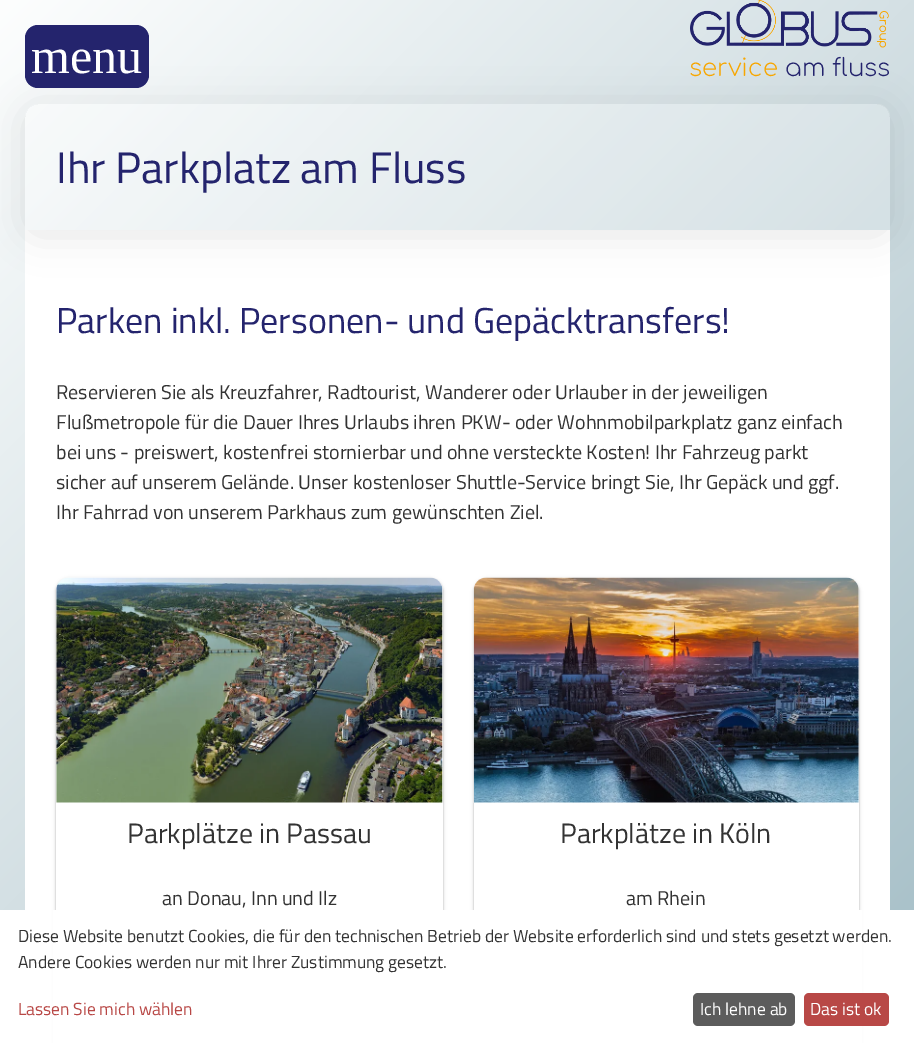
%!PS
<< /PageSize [914 1043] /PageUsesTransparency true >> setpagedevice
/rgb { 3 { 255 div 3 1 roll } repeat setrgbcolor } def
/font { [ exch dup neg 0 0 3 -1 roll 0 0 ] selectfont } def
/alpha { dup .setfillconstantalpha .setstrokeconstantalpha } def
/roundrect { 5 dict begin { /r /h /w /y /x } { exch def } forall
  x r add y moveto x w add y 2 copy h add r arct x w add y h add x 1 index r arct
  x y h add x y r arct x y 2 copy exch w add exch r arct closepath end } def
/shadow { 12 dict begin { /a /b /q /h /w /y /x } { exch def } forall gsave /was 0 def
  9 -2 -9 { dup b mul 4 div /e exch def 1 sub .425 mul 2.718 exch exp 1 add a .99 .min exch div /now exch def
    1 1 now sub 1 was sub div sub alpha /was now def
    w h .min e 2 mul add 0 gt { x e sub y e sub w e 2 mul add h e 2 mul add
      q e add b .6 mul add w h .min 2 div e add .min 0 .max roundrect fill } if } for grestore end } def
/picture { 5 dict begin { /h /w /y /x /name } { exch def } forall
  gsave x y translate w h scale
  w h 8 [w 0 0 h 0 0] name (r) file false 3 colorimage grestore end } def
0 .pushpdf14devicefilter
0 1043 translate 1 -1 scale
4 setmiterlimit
255 255 255 rgb
0 0 914 1043 rectfill
gsave 0 0 moveto 914 0 lineto 914 910 lineto 0 910 lineto closepath clip newpath
<< /ShadingType 2 /ColorSpace /DeviceRGB /Coords [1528 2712 -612 573] /Extend [true true] /Function << /FunctionType 2 /Domain [0 1] /C0 [0.235 0.451 0.525] /C1 [1 1 1] /N 1 >> >> shfill grestore
25 230 865 680 rectfill
gsave
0 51 moveto 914 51 lineto 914 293 lineto 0 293 lineto closepath 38 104 moveto 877 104 lineto 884 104 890 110 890 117 curveto 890 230 lineto 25 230 lineto 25 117 lineto 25 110 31 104 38 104 curveto closepath eoclip newpath
0 0 0 rgb
25 109 865 126 13 19 0.1 shadow
grestore
36 36 109 rgb
25 25 124 63 13 roundrect fill
(img/1.rgb) 690 0 199 48 picture
0.2 alpha
255 255 255 rgb
38 104 moveto 877 104 lineto 884 104 890 110 890 117 curveto 890 230 lineto 25 230 lineto 25 117 lineto 25 110 31 104 38 104 curveto closepath fill
1 alpha
0 0 0 rgb
56 579 387 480 13 1 0.24 shadow
56 579 387 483 13 2 0.12 shadow
255 255 255 rgb
56 578 387 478 13 roundrect fill
(img/2.rgb) 56 577 387 226 picture
0 0 0 rgb
474 579 385 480 13 1 0.24 shadow
474 579 385 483 13 2 0.12 shadow
255 255 255 rgb
474 578 385 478 13 roundrect fill
(img/3.rgb) 473 577 386 226 picture
53 910 809 133 rectfill
92 92 92 rgb
693 993 102 33 5 roundrect fill
184 72 70 rgb
804 993 85 33 5 roundrect fill
/LiberationSerif-Regular 50 font
255 255 255 rgb
31 73 moveto (menu) show
/Comfortaa-Light 24.5 font
247 166 0 rgb
689 76 moveto (service) show
36 36 109 rgb
785 76 moveto (am fluss) show
/TitilliumWeb-Regular 44 font
56 183 moveto (Ihr Parkplatz am Fluss) show
/TitilliumWeb-Regular 36 font
56 333 moveto (Parken inkl. Personen- und Gepäcktransfers!) show
/TitilliumWeb-Regular 20 font
51 51 51 rgb
[
  [(Reservieren Sie als Kreuzfahrer, Radtourist, Wanderer oder Urlauber in der jeweiligen) 56 399]
  [(Flußmetropole für die Dauer Ihres Urlaubs ihren PKW- oder Wohnmobilparkplatz ganz einfach) 56 429]
  [(bei uns - preiswert, kostenfrei stornierbar und ohne versteckte Kosten! Ihr Fahrzeug parkt) 56 459]
  [(sicher auf unserem Gelände. Unser kostenloser Shuttle-Service bringt Sie, Ihr Gepäck und ggf.) 56 489]
  [(Ihr Fahrrad von unserem Parkhaus zum gewünschten Ziel.) 56 519]
] { aload pop moveto show } forall
/TitilliumWeb-Regular 28 font
127 843 moveto (Parkplätze in Passau) show
/TitilliumWeb-Regular 20 font
162 905 moveto (an Donau, Inn und Ilz) show
/TitilliumWeb-Regular 28 font
560 843 moveto (Parkplätze in Köln) show
/TitilliumWeb-Regular 20 font
626 905 moveto (am Rhein) show
/TitilliumWeb-Regular 17.5 font
18 942 moveto (Diese Website benutzt Cookies, die für den technischen Betrieb der Website erforderlich sind und stets gesetzt werden.) show
18 968 moveto (Andere Cookies werden nur mit Ihrer Zustimmung gesetzt.) show
184 72 70 rgb
18 1015 moveto (Lassen Sie mich wählen) show
255 255 255 rgb
700 1015 moveto (Ich lehne ab) show
810 1015 moveto (Das ist ok) show
.poppdf14devicefilter showpage
